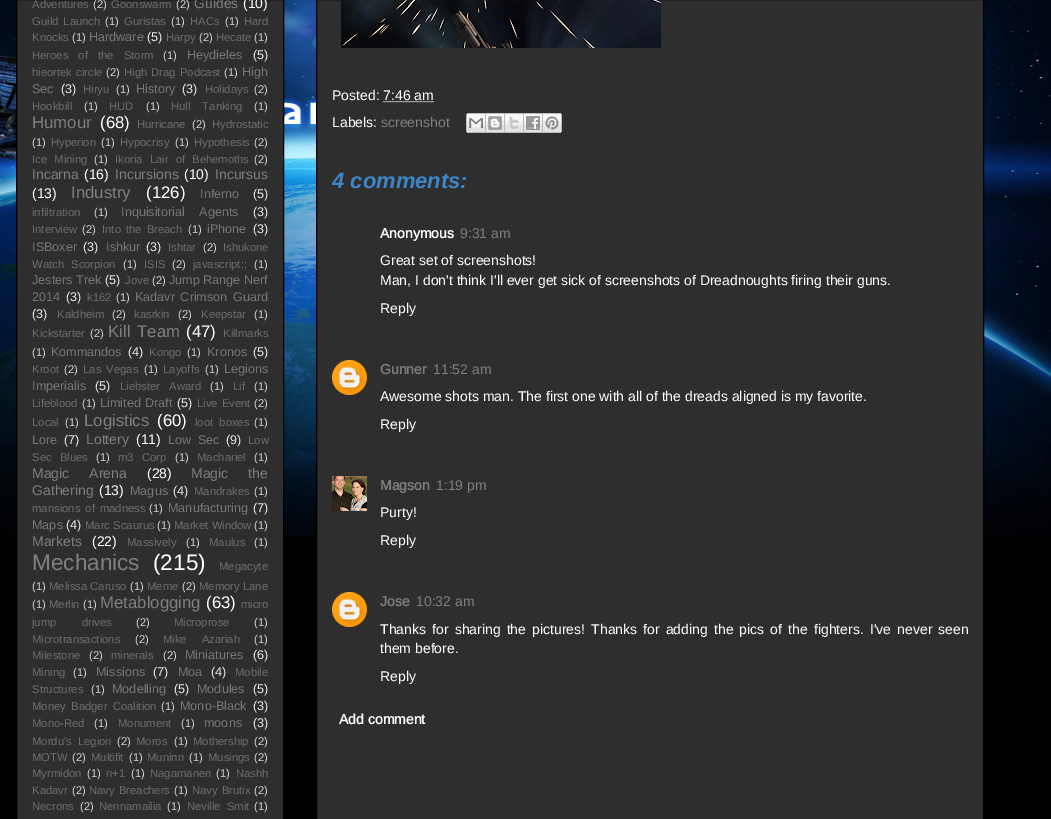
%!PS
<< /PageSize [1051 819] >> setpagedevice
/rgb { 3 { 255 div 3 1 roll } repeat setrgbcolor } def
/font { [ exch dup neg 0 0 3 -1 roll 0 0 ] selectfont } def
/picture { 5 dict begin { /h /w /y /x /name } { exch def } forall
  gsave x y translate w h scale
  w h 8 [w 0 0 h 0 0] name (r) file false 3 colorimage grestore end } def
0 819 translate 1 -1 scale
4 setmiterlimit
0 0 0 rgb
0 0 1051 819 rectfill
(img/1.rgb) 0 0 1051 536 picture
46 46 46 rgb
16.5 -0.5 moveto 283.5 -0.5 lineto 283.5 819.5 lineto 16.5 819.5 lineto closepath gsave fill grestore
0 0 0 rgb
stroke
46 46 46 rgb
316.5 -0.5 moveto 983.5 -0.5 lineto 983.5 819.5 lineto 316.5 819.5 lineto closepath gsave fill grestore
0 0 0 rgb
stroke
(img/2.rgb) 341 0 320 48 picture
255 255 255 rgb
[1 1] 0 setdash
383.5 101.5 moveto 434 101.5 lineto stroke
(img/3.rgb) 466 113 20 20 picture
(img/4.rgb) 486 113 19 20 picture
(img/5.rgb) 505 113 19 20 picture
(img/6.rgb) 524 113 19 20 picture
(img/7.rgb) 543 113 19 20 picture
(img/8.rgb) 332 360 35 35 picture
(img/9.rgb) 332 476 35 35 picture
(img/8.rgb) 332 592 35 35 picture
/LiberationSans-Regular 11.25 font
111 111 111 rgb
32 8 moveto (Adventures) show
213 213 213 rgb
93 8 moveto (\(2\)) show
111 111 111 rgb
111 8 moveto (Goonswarm) show
213 213 213 rgb
176 8 moveto (\(2\)) show
/LiberationSans-Regular 14 font
127 127 127 rgb
194 8 moveto (Guides) show
255 255 255 rgb
243 8 moveto (\(10\)) show
/LiberationSans-Regular 11.25 font
111 111 111 rgb
32 25 moveto 2 0 32 (Guild Launch) widthshow
213 213 213 rgb
105 25 moveto (\(1\)) show
111 111 111 rgb
124 25 moveto (Guristas) show
213 213 213 rgb
171 25 moveto (\(1\)) show
111 111 111 rgb
190 25 moveto (HACs) show
213 213 213 rgb
225 25 moveto (\(1\)) show
111 111 111 rgb
244 25 moveto (Hard) show
32 41 moveto (Knocks) show
213 213 213 rgb
72 41 moveto (\(1\)) show
/LiberationSans-Regular 12.6 font
119 119 119 rgb
89 41 moveto (Hardware) show
234 234 234 rgb
147 41 moveto (\(5\)) show
/LiberationSans-Regular 11.25 font
111 111 111 rgb
166 41 moveto (Harpy) show
213 213 213 rgb
199 41 moveto (\(2\)) show
111 111 111 rgb
216 41 moveto (Hecate) show
213 213 213 rgb
254 41 moveto (\(1\)) show
111 111 111 rgb
32 59 moveto 7 0 32 (Heroes of the Storm) widthshow
213 213 213 rgb
163 59 moveto (\(1\)) show
/LiberationSans-Regular 12.6 font
119 119 119 rgb
187 59 moveto (Heydieles) show
234 234 234 rgb
253 59 moveto (\(5\)) show
/LiberationSans-Regular 11.25 font
111 111 111 rgb
32 76 moveto 1 0 32 (hieortek circle) widthshow
213 213 213 rgb
106 76 moveto (\(2\)) show
111 111 111 rgb
124 76 moveto 1 0 32 (High Drag Podcast) widthshow
213 213 213 rgb
224 76 moveto (\(1\)) show
/LiberationSans-Regular 12.6 font
119 119 119 rgb
242 76 moveto (High) show
32 93 moveto (Sec) show
234 234 234 rgb
61 93 moveto (\(3\)) show
/LiberationSans-Regular 11.25 font
111 111 111 rgb
83 93 moveto (Hiryu) show
213 213 213 rgb
116 93 moveto (\(1\)) show
/LiberationSans-Regular 12.6 font
119 119 119 rgb
136 93 moveto (History) show
234 234 234 rgb
182 93 moveto (\(3\)) show
/LiberationSans-Regular 11.25 font
111 111 111 rgb
205 93 moveto (Holidays) show
213 213 213 rgb
254 93 moveto (\(2\)) show
111 111 111 rgb
32 110 moveto (Hookbill) show
213 213 213 rgb
84 110 moveto (\(1\)) show
111 111 111 rgb
109 110 moveto (HUD) show
213 213 213 rgb
146 110 moveto (\(1\)) show
111 111 111 rgb
171 110 moveto 9 0 32 (Hull Tanking) widthshow
213 213 213 rgb
254 110 moveto (\(1\)) show
/LiberationSans-Regular 16.75 font
127 127 127 rgb
32 128 moveto (Humour) show
255 255 255 rgb
100 128 moveto (\(68\)) show
/LiberationSans-Regular 11.25 font
111 111 111 rgb
137 128 moveto (Hurricane) show
213 213 213 rgb
192 128 moveto (\(2\)) show
111 111 111 rgb
212 128 moveto (Hydrostatic) show
213 213 213 rgb
32 146 moveto (\(1\)) show
111 111 111 rgb
51 146 moveto (Hyperion) show
213 213 213 rgb
101 146 moveto (\(1\)) show
111 111 111 rgb
120 146 moveto (Hypocrisy) show
213 213 213 rgb
175 146 moveto (\(1\)) show
111 111 111 rgb
194 146 moveto (Hypothesis) show
213 213 213 rgb
254 146 moveto (\(2\)) show
111 111 111 rgb
32 163 moveto 4 0 32 (Ice Mining) widthshow
213 213 213 rgb
94 163 moveto (\(1\)) show
111 111 111 rgb
115 163 moveto 4 0 32 (Ikoria Lair of Behemoths) widthshow
213 213 213 rgb
254 163 moveto (\(2\)) show
/LiberationSans-Regular 14 font
127 127 127 rgb
32 179 moveto (Incarna) show
255 255 255 rgb
84 179 moveto (\(16\)) show
127 127 127 rgb
115 179 moveto (Incursions) show
255 255 255 rgb
184 179 moveto (\(10\)) show
127 127 127 rgb
215 179 moveto (Incursus) show
255 255 255 rgb
32 198 moveto (\(13\)) show
/LiberationSans-Regular 16.75 font
127 127 127 rgb
71 198 moveto (Industry) show
255 255 255 rgb
146 198 moveto (\(126\)) show
/LiberationSans-Regular 12.6 font
119 119 119 rgb
200 198 moveto (Inferno) show
234 234 234 rgb
253 198 moveto (\(5\)) show
/LiberationSans-Regular 11.25 font
111 111 111 rgb
32 216 moveto (infiltration) show
213 213 213 rgb
94 216 moveto (\(1\)) show
/LiberationSans-Regular 12.6 font
119 119 119 rgb
121 216 moveto 11 0 32 (Inquisitorial Agents) widthshow
234 234 234 rgb
253 216 moveto (\(3\)) show
/LiberationSans-Regular 11.25 font
111 111 111 rgb
32 233 moveto (Interview) show
213 213 213 rgb
82 233 moveto (\(2\)) show
111 111 111 rgb
102 233 moveto 2 0 32 (Into the Breach) widthshow
213 213 213 rgb
188 233 moveto (\(1\)) show
/LiberationSans-Regular 12.6 font
119 119 119 rgb
207 233 moveto (iPhone) show
234 234 234 rgb
253 233 moveto (\(3\)) show
119 119 119 rgb
32 251 moveto (ISBoxer) show
234 234 234 rgb
83 251 moveto (\(3\)) show
119 119 119 rgb
106 251 moveto (Ishkur) show
234 234 234 rgb
146 251 moveto (\(3\)) show
/LiberationSans-Regular 11.25 font
111 111 111 rgb
168 251 moveto (Ishtar) show
213 213 213 rgb
203 251 moveto (\(2\)) show
111 111 111 rgb
223 251 moveto (Ishukone) show
32 268 moveto 4 0 32 (Watch Scorpion) widthshow
213 213 213 rgb
123 268 moveto (\(1\)) show
111 111 111 rgb
144 268 moveto (ISIS) show
213 213 213 rgb
172 268 moveto (\(2\)) show
111 111 111 rgb
193 268 moveto (javascript:;) show
213 213 213 rgb
254 268 moveto (\(1\)) show
/LiberationSans-Regular 12.6 font
119 119 119 rgb
32 284 moveto (Jesters Trek) show
234 234 234 rgb
105 284 moveto (\(5\)) show
/LiberationSans-Regular 11.25 font
111 111 111 rgb
125 284 moveto (Jove) show
213 213 213 rgb
152 284 moveto (\(2\)) show
/LiberationSans-Regular 12.6 font
119 119 119 rgb
169 284 moveto (Jump Range Nerf) show
32 301 moveto (2014) show
234 234 234 rgb
66 301 moveto (\(3\)) show
/LiberationSans-Regular 11.25 font
111 111 111 rgb
87 301 moveto (k162) show
213 213 213 rgb
116 301 moveto (\(1\)) show
/LiberationSans-Regular 12.6 font
119 119 119 rgb
135 301 moveto 2 0 32 (Kadavr Crimson Guard) widthshow
234 234 234 rgb
32 318 moveto (\(3\)) show
/LiberationSans-Regular 11.25 font
111 111 111 rgb
57 318 moveto (Kaldheim) show
213 213 213 rgb
112 318 moveto (\(2\)) show
111 111 111 rgb
134 318 moveto (kasrkin) show
213 213 213 rgb
178 318 moveto (\(2\)) show
111 111 111 rgb
201 318 moveto (Keepstar) show
213 213 213 rgb
254 318 moveto (\(1\)) show
111 111 111 rgb
32 337 moveto (Kickstarter) show
213 213 213 rgb
90 337 moveto (\(2\)) show
/LiberationSans-Regular 16.75 font
127 127 127 rgb
108 337 moveto 2 0 32 (Kill Team) widthshow
255 255 255 rgb
186 337 moveto (\(47\)) show
/LiberationSans-Regular 11.25 font
111 111 111 rgb
223 337 moveto (Killmarks) show
213 213 213 rgb
32 356 moveto (\(1\)) show
/LiberationSans-Regular 12.6 font
119 119 119 rgb
51 356 moveto (Kommandos) show
234 234 234 rgb
128 356 moveto (\(4\)) show
/LiberationSans-Regular 11.25 font
111 111 111 rgb
149 356 moveto (Kongo) show
213 213 213 rgb
187 356 moveto (\(1\)) show
/LiberationSans-Regular 12.6 font
119 119 119 rgb
207 356 moveto (Kronos) show
234 234 234 rgb
253 356 moveto (\(5\)) show
/LiberationSans-Regular 11.25 font
111 111 111 rgb
32 373 moveto (Kroot) show
213 213 213 rgb
64 373 moveto (\(2\)) show
111 111 111 rgb
83 373 moveto 2 0 32 (Las Vegas) widthshow
213 213 213 rgb
144 373 moveto (\(1\)) show
111 111 111 rgb
163 373 moveto (Layoffs) show
213 213 213 rgb
205 373 moveto (\(1\)) show
/LiberationSans-Regular 12.6 font
119 119 119 rgb
224 373 moveto (Legions) show
32 390 moveto (Imperialis) show
234 234 234 rgb
95 390 moveto (\(5\)) show
/LiberationSans-Regular 11.25 font
111 111 111 rgb
120 390 moveto 6 0 32 (Liebster Award) widthshow
213 213 213 rgb
210 390 moveto (\(1\)) show
111 111 111 rgb
233 390 moveto (Lif) show
213 213 213 rgb
254 390 moveto (\(1\)) show
111 111 111 rgb
32 407 moveto (Lifeblood) show
213 213 213 rgb
82 407 moveto (\(1\)) show
/LiberationSans-Regular 12.6 font
119 119 119 rgb
100 407 moveto 1 0 32 (Limited Draft) widthshow
234 234 234 rgb
177 407 moveto (\(5\)) show
/LiberationSans-Regular 11.25 font
111 111 111 rgb
197 407 moveto 1 0 32 (Live Event) widthshow
213 213 213 rgb
254 407 moveto (\(2\)) show
111 111 111 rgb
32 426 moveto (Local) show
213 213 213 rgb
65 426 moveto (\(1\)) show
/LiberationSans-Regular 16.75 font
127 127 127 rgb
84 426 moveto (Logistics) show
255 255 255 rgb
157 426 moveto (\(60\)) show
/LiberationSans-Regular 11.25 font
111 111 111 rgb
195 426 moveto 3 0 32 (loot boxes) widthshow
213 213 213 rgb
254 426 moveto (\(1\)) show
/LiberationSans-Regular 12.6 font
119 119 119 rgb
32 444 moveto (Lore) show
234 234 234 rgb
64 444 moveto (\(7\)) show
/LiberationSans-Regular 14 font
127 127 127 rgb
86 444 moveto (Lottery) show
255 255 255 rgb
136 444 moveto (\(11\)) show
/LiberationSans-Regular 12.6 font
119 119 119 rgb
168 444 moveto 3 0 32 (Low Sec) widthshow
234 234 234 rgb
226 444 moveto (\(9\)) show
/LiberationSans-Regular 11.25 font
111 111 111 rgb
248 444 moveto (Low) show
32 461 moveto 5 0 32 (Sec Blues) widthshow
213 213 213 rgb
96 461 moveto (\(1\)) show
111 111 111 rgb
118 461 moveto 5 0 32 (m3 Corp) widthshow
213 213 213 rgb
175 461 moveto (\(1\)) show
111 111 111 rgb
197 461 moveto (Machariel) show
213 213 213 rgb
254 461 moveto (\(1\)) show
/LiberationSans-Regular 14 font
127 127 127 rgb
32 478 moveto 16 0 32 (Magic Arena) widthshow
255 255 255 rgb
147 478 moveto (\(28\)) show
127 127 127 rgb
191 478 moveto 16 0 32 (Magic the) widthshow
32 495 moveto (Gathering) show
255 255 255 rgb
99 495 moveto (\(13\)) show
/LiberationSans-Regular 12.6 font
119 119 119 rgb
130 495 moveto (Magus) show
234 234 234 rgb
173 495 moveto (\(4\)) show
/LiberationSans-Regular 11.25 font
111 111 111 rgb
194 495 moveto (Mandrakes) show
213 213 213 rgb
254 495 moveto (\(1\)) show
111 111 111 rgb
32 512 moveto 2 0 32 (mansions of madness) widthshow
213 213 213 rgb
149 512 moveto (\(1\)) show
/LiberationSans-Regular 12.6 font
119 119 119 rgb
168 512 moveto (Manufacturing) show
234 234 234 rgb
253 512 moveto (\(7\)) show
119 119 119 rgb
32 529 moveto (Maps) show
234 234 234 rgb
66 529 moveto (\(4\)) show
/LiberationSans-Regular 11.25 font
111 111 111 rgb
85 529 moveto (Marc Scaurus) show
213 213 213 rgb
157 529 moveto (\(1\)) show
111 111 111 rgb
174 529 moveto (Market Window) show
213 213 213 rgb
254 529 moveto (\(1\)) show
/LiberationSans-Regular 14 font
127 127 127 rgb
32 546 moveto (Markets) show
255 255 255 rgb
92 546 moveto (\(22\)) show
/LiberationSans-Regular 11.25 font
111 111 111 rgb
127 546 moveto (Massively) show
213 213 213 rgb
186 546 moveto (\(1\)) show
111 111 111 rgb
209 546 moveto (Maulus) show
213 213 213 rgb
254 546 moveto (\(1\)) show
/LiberationSans-Regular 22.5 font
127 127 127 rgb
32 570 moveto (Mechanics) show
255 255 255 rgb
153 570 moveto (\(215\)) show
/LiberationSans-Regular 11.25 font
111 111 111 rgb
219 570 moveto (Megacyte) show
213 213 213 rgb
32 590 moveto (\(1\)) show
111 111 111 rgb
49 590 moveto (Melissa Caruso) show
213 213 213 rgb
130 590 moveto (\(1\)) show
111 111 111 rgb
147 590 moveto (Meme) show
213 213 213 rgb
182 590 moveto (\(2\)) show
111 111 111 rgb
199 590 moveto (Memory Lane) show
213 213 213 rgb
32 608 moveto (\(1\)) show
111 111 111 rgb
49 608 moveto (Merlin) show
213 213 213 rgb
83 608 moveto (\(1\)) show
/LiberationSans-Regular 16.75 font
127 127 127 rgb
100 608 moveto (Metablogging) show
255 255 255 rgb
206 608 moveto (\(63\)) show
/LiberationSans-Regular 11.25 font
111 111 111 rgb
241 608 moveto (micro) show
32 626 moveto 22 0 32 (jump drives) widthshow
213 213 213 rgb
136 626 moveto (\(2\)) show
111 111 111 rgb
174 626 moveto (Microprose) show
213 213 213 rgb
254 626 moveto (\(1\)) show
111 111 111 rgb
32 643 moveto (Microtransactions) show
213 213 213 rgb
135 643 moveto (\(2\)) show
111 111 111 rgb
163 643 moveto 12 0 32 (Mike Azariah) widthshow
213 213 213 rgb
254 643 moveto (\(1\)) show
111 111 111 rgb
32 659 moveto (Milestone) show
213 213 213 rgb
89 659 moveto (\(2\)) show
111 111 111 rgb
111 659 moveto (minerals) show
213 213 213 rgb
163 659 moveto (\(2\)) show
/LiberationSans-Regular 12.6 font
119 119 119 rgb
185 659 moveto (Miniatures) show
234 234 234 rgb
253 659 moveto (\(6\)) show
/LiberationSans-Regular 11.25 font
111 111 111 rgb
32 676 moveto (Mining) show
213 213 213 rgb
73 676 moveto (\(1\)) show
/LiberationSans-Regular 12.6 font
119 119 119 rgb
96 676 moveto (Missions) show
234 234 234 rgb
153 676 moveto (\(7\)) show
119 119 119 rgb
178 676 moveto (Moa) show
234 234 234 rgb
211 676 moveto (\(4\)) show
/LiberationSans-Regular 11.25 font
111 111 111 rgb
235 676 moveto (Mobile) show
32 693 moveto (Structures) show
213 213 213 rgb
91 693 moveto (\(1\)) show
/LiberationSans-Regular 12.6 font
119 119 119 rgb
112 693 moveto (Modelling) show
234 234 234 rgb
174 693 moveto (\(5\)) show
119 119 119 rgb
197 693 moveto (Modules) show
234 234 234 rgb
253 693 moveto (\(5\)) show
/LiberationSans-Regular 11.25 font
111 111 111 rgb
32 710 moveto 2.25 0 32 (Money Badger Coalition) widthshow
213 213 213 rgb
161 710 moveto (\(1\)) show
/LiberationSans-Regular 12.6 font
119 119 119 rgb
180 710 moveto (Mono-Black) show
234 234 234 rgb
253 710 moveto (\(3\)) show
/LiberationSans-Regular 11.25 font
111 111 111 rgb
32 727 moveto (Mono-Red) show
213 213 213 rgb
94 727 moveto (\(1\)) show
111 111 111 rgb
118 727 moveto (Monument) show
213 213 213 rgb
181 727 moveto (\(1\)) show
/LiberationSans-Regular 12.6 font
119 119 119 rgb
204 727 moveto (moons) show
234 234 234 rgb
253 727 moveto (\(3\)) show
/LiberationSans-Regular 11.25 font
111 111 111 rgb
32 745 moveto 3 0 32 (Mordu's Legion) widthshow
213 213 213 rgb
117 745 moveto (\(2\)) show
111 111 111 rgb
136 745 moveto (Moros) show
213 213 213 rgb
174 745 moveto (\(1\)) show
111 111 111 rgb
193 745 moveto (Mothership) show
213 213 213 rgb
254 745 moveto (\(2\)) show
111 111 111 rgb
32 761 moveto (MOTW) show
213 213 213 rgb
72 761 moveto (\(2\)) show
111 111 111 rgb
91 761 moveto (Multifit) show
213 213 213 rgb
129 761 moveto (\(1\)) show
111 111 111 rgb
147 761 moveto (Muninn) show
213 213 213 rgb
189 761 moveto (\(1\)) show
111 111 111 rgb
208 761 moveto (Musings) show
213 213 213 rgb
254 761 moveto (\(2\)) show
111 111 111 rgb
32 777 moveto (Myrmidon) show
213 213 213 rgb
87 777 moveto (\(1\)) show
111 111 111 rgb
106 777 moveto (n+1) show
213 213 213 rgb
131 777 moveto (\(1\)) show
111 111 111 rgb
150 777 moveto (Nagamanen) show
213 213 213 rgb
216 777 moveto (\(1\)) show
111 111 111 rgb
236 777 moveto (Nashh) show
32 794 moveto (Kadavr) show
213 213 213 rgb
72 794 moveto (\(2\)) show
111 111 111 rgb
89 794 moveto 1 0 32 (Navy Breachers) widthshow
213 213 213 rgb
174 794 moveto (\(1\)) show
111 111 111 rgb
192 794 moveto 1 0 32 (Navy Brutix) widthshow
213 213 213 rgb
254 794 moveto (\(2\)) show
111 111 111 rgb
32 810 moveto (Necrons) show
213 213 213 rgb
80 810 moveto (\(2\)) show
111 111 111 rgb
99 810 moveto (Nennamailia) show
213 213 213 rgb
167 810 moveto (\(1\)) show
111 111 111 rgb
187 810 moveto 3 0 32 (Neville Smit) widthshow
213 213 213 rgb
254 810 moveto (\(1\)) show
/Arimo-Regular 14 font
255 255 255 rgb
332 100 moveto (Posted: 7:46 am) show
332 127 moveto (Labels:) show
127 127 127 rgb
381 127 moveto (screenshot) show
/Arimo-BoldItalic 22 font
61 133 198 rgb
332 188 moveto (4 comments:) show
/Arimo-Bold 14 font
255 255 255 rgb
380 238 moveto (Anonymous) show
/Arimo-Regular 14 font
127 127 127 rgb
460 238 moveto (9:31 am) show
255 255 255 rgb
[
  [(Great set of screenshots!) 380 265]
  [(Man, I don't think I'll ever get sick of screenshots of Dreadnoughts firing their guns.) 380 285]
  [(Reply) 380 313]
] { aload pop moveto show } forall
/Arimo-Bold 14 font
127 127 127 rgb
380 374 moveto (Gunner) show
/Arimo-Regular 14 font
433 374 moveto (11:52 am) show
255 255 255 rgb
380 401 moveto (Awesome shots man. The first one with all of the dreads aligned is my favorite.) show
380 429 moveto (Reply) show
/Arimo-Bold 14 font
127 127 127 rgb
380 490 moveto (Magson) show
/Arimo-Regular 14 font
436 490 moveto (1:19 pm) show
255 255 255 rgb
380 517 moveto (Purty!) show
380 545 moveto (Reply) show
/Arimo-Bold 14 font
127 127 127 rgb
380 606 moveto (Jose) show
/Arimo-Regular 14 font
416 606 moveto (10:32 am) show
255 255 255 rgb
380 634 moveto 2.25 0 32 (Thanks for sharing the pictures! Thanks for adding the pics of the fighters. I've never seen) widthshow
380 653 moveto (them before.) show
380 681 moveto (Reply) show
/Arimo-Bold 14 font
339 724 moveto (Add comment) show
showpage
